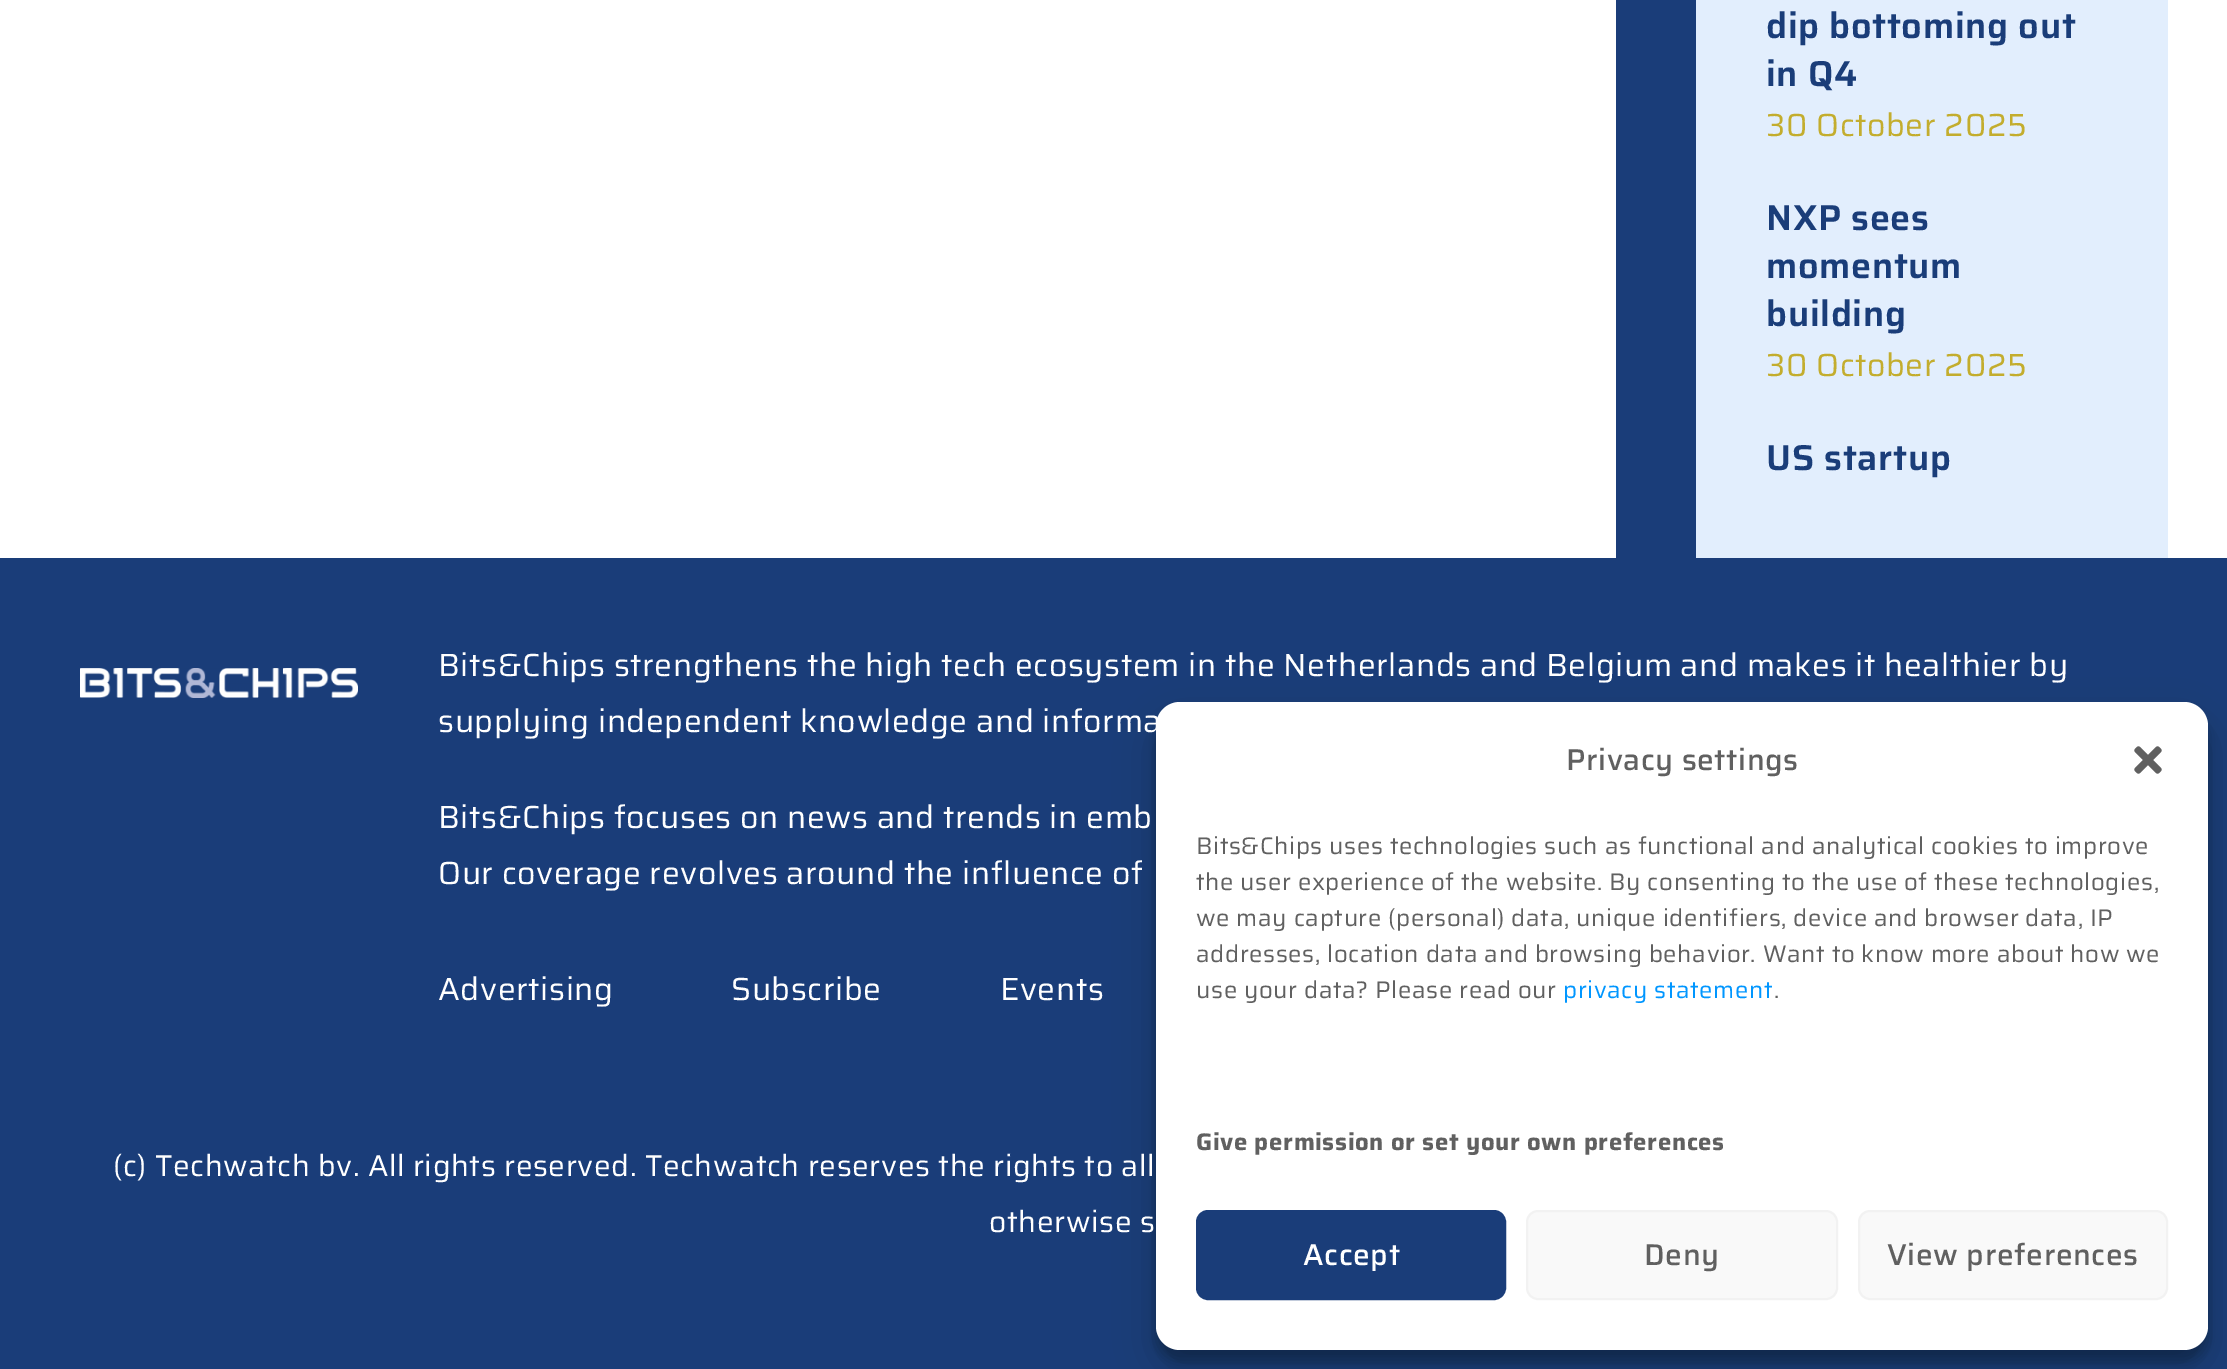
%!PS
<< /PageSize [2227 1369] /PageUsesTransparency true >> setpagedevice
/rgb { 3 { 255 div 3 1 roll } repeat setrgbcolor } def
/font { [ exch dup neg 0 0 3 -1 roll 0 0 ] selectfont } def
/alpha { dup .setfillconstantalpha .setstrokeconstantalpha } def
/roundrect { 5 dict begin { /r /h /w /y /x } { exch def } forall
  x r add y moveto x w add y 2 copy h add r arct x w add y h add x 1 index r arct
  x y h add x y r arct x y 2 copy exch w add exch r arct closepath end } def
/shadow { 12 dict begin { /a /b /q /h /w /y /x } { exch def } forall gsave /was 0 def
  9 -2 -9 { dup b mul 4 div /e exch def 1 sub .425 mul 2.718 exch exp 1 add a .99 .min exch div /now exch def
    1 1 now sub 1 was sub div sub alpha /was now def
    w h .min e 2 mul add 0 gt { x e sub y e sub w e 2 mul add h e 2 mul add
      q e add b .6 mul add w h .min 2 div e add .min 0 .max roundrect fill } if } for grestore end } def
/picture { 5 dict begin { /h /w /y /x /name } { exch def } forall
  gsave x y translate w h scale
  w h 8 [w 0 0 h 0 0] name (r) file false 3 colorimage grestore end } def
0 .pushpdf14devicefilter
0 1369 translate 1 -1 scale
4 setmiterlimit
255 255 255 rgb
0 0 2227 1369 rectfill
[
  [1696 0 472 558 226 238 253]
  [1616 0 80 558 26 61 121]
  [0 558 2227 811 26 61 121]
] { aload pop rgb rectfill } forall
(img/1.rgb) 80 668 278 30 picture
0 0 0 rgb
1156 714 1052 648 24 6 0.23 shadow
1156 722 1052 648 24 20 0.19 shadow
255 255 255 rgb
1156 702 1052 648 24 roundrect fill
(img/2.rgb) 2134 746 28 28 picture
26 61 121 rgb
1197 1211 308 88 11 roundrect gsave fill grestore
2 setlinewidth
stroke
249 249 249 rgb
1527 1211 310 88 11 roundrect gsave fill grestore
242 242 242 rgb
stroke
249 249 249 rgb
1859 1211 308 88 11 roundrect gsave fill grestore
242 242 242 rgb
stroke
/Saira-SemiBold 36 font
26 61 121 rgb
1766 38 moveto 0.6 0 (dip bottoming out) ashow
1766 86 moveto 0.6 0 (in Q4) ashow
/Saira-Regular 32 font
195 173 46 rgb
1766 136 moveto 0.6 0 (30 October 2025) ashow
/Saira-SemiBold 36 font
26 61 121 rgb
1766 230 moveto 0.6 0 (NXP sees) ashow
1766 278 moveto 0.6 0 (momentum) ashow
1766 326 moveto 0.6 0 (building) ashow
/Saira-Regular 32 font
195 173 46 rgb
1766 376 moveto 0.6 0 (30 October 2025) ashow
/Saira-SemiBold 36 font
26 61 121 rgb
1766 470 moveto 0.6 0 (US startup) ashow
/Saira-Regular 32 font
255 255 255 rgb
438 676 moveto 0.6 0 (Bits&Chips strengthens the high tech ecosystem in the Netherlands and Belgium and makes it healthier by) ashow
438 732 moveto 0.6 0 (supplying independent knowledge and informa) ashow
438 828 moveto 0.6 0 (Bits&Chips focuses on news and trends in emb) ashow
438 884 moveto 0.6 0 (Our coverage revolves around the influence of) ashow
438 1000 moveto 0.6 0 (Advertising) ashow
731 1000 moveto 0.6 0 (Subscribe) ashow
1000 1000 moveto 0.6 0 (Events) ashow
/Saira-Regular 30 font
113 1176 moveto 0.6 0 (\(c\) Techwatch bv. All rights reserved. Techwatch reserves the rights to all) ashow
989 1232 moveto 0.6 0 (otherwise s) ashow
/Saira-Medium 30 font
96 96 96 rgb
1566 770 moveto 0.6 0 (Privacy settings) ashow
/Saira-Regular 24 font
1196 854 moveto 0.6 0 (Bits&Chips uses technologies such as functional and analytical cookies to improve) ashow
1196 890 moveto 0.6 0 (the user experience of the website. By consenting to the use of these technologies,) ashow
1196 926 moveto 0.6 0 (we may capture \(personal\) data, unique identifiers, device and browser data, IP) ashow
1196 962 moveto 0.6 0 (addresses, location data and browsing behavior. Want to know more about how we) ashow
1196 998 moveto 0.6 0 (use your data? Please read our) ashow
0 150 255 rgb
1563 998 moveto 0.6 0 (privacy statement) ashow
96 96 96 rgb
1774 998 moveto 0.6 0 (.) ashow
/Saira-Bold 24 font
1196 1150 moveto 0.6 0 (Give permission or set your own preferences) ashow
/Saira-Medium 30 font
255 255 255 rgb
1303 1265 moveto 0.6 0 (Accept) ashow
96 96 96 rgb
1644 1265 moveto 0.6 0 (Deny) ashow
1887 1265 moveto 0.6 0 (View preferences) ashow
.poppdf14devicefilter showpage
